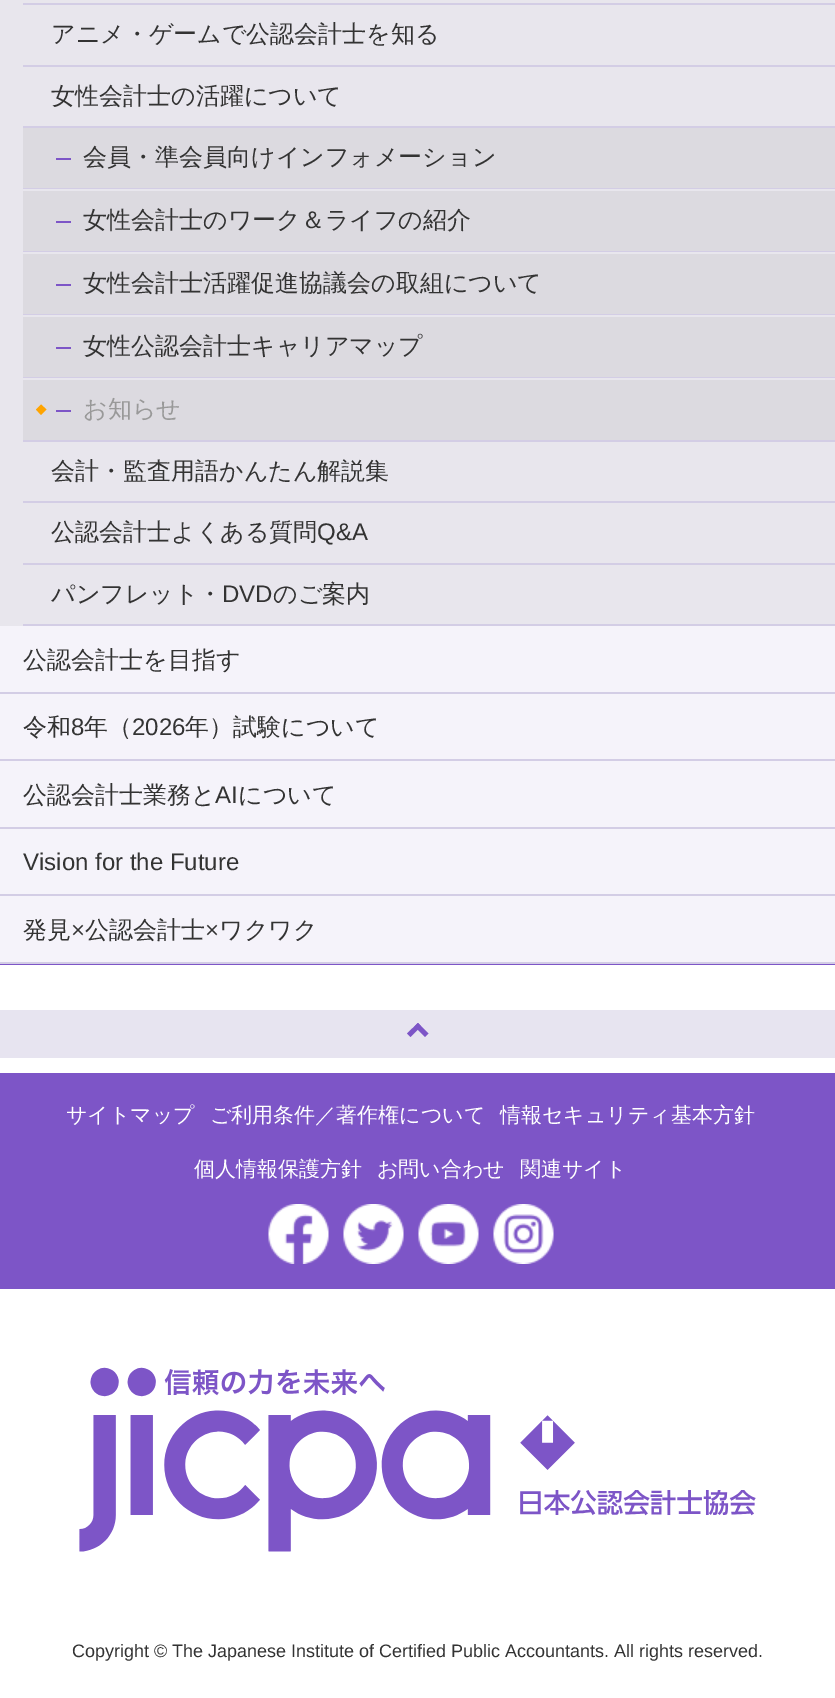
%!PS
<< /PageSize [835 1698] >> setpagedevice
/rgb { 3 { 255 div 3 1 roll } repeat setrgbcolor } def
/font { [ exch dup neg 0 0 3 -1 roll 0 0 ] selectfont } def
/picture { 5 dict begin { /h /w /y /x /name } { exch def } forall
  gsave x y translate w h scale
  w h 8 [w 0 0 h 0 0] name (r) file false 3 colorimage grestore end } def
0 1698 translate 1 -1 scale
4 setmiterlimit
255 255 255 rgb
0 0 835 1698 rectfill
[
  [0 964 835 1 125 85 199]
  [0 626 835 336 245 243 250]
  [0 0 835 626 232 230 237]
  [23 3 812 2 211 205 229]
  [23 65 812 2 211 205 229]
  [23 126 812 2 211 205 229]
  [23 128 812 312 220 218 224]
  [23 188 812 1 211 205 229]
  [56 158 15 2 125 85 199]
  [23 189 812 2 232 230 237]
  [23 251 812 1 211 205 229]
  [56 221 15 2 125 85 199]
  [23 252 812 2 232 230 237]
  [23 314 812 1 211 205 229]
  [56 284 15 2 125 85 199]
  [23 315 812 2 232 230 237]
  [23 377 812 1 211 205 229]
  [56 347 15 2 125 85 199]
  [23 378 812 2 232 230 237]
  [23 440 812 2 211 205 229]
] { aload pop rgb rectfill } forall
255 164 0 rgb
41 404.5 moveto 46.5 409.5 lineto 41 415 lineto 36 409.5 lineto closepath fill
[
  [56 410 15 2 125 85 199]
  [23 501 812 2 211 205 229]
  [23 563 812 2 211 205 229]
  [23 624 812 2 211 205 229]
  [0 692 835 2 211 205 229]
  [0 759 835 2 211 205 229]
  [0 827 835 2 211 205 229]
  [0 894 835 2 211 205 229]
  [0 962 835 2 211 205 229]
  [0 1010 835 48 231 228 240]
] { aload pop rgb rectfill } forall
125 85 199 rgb
418 1023 moveto 428.5 1033.5 lineto 425 1037 lineto 414.5 1026.5 lineto closepath fill
418 1023 moveto 421 1026.5 lineto 410.5 1037 lineto 407 1033.5 lineto closepath fill
0 1073 835 216 rectfill
(img/1.rgb) 268 1204 61 60 picture
(img/2.rgb) 343 1204 61 60 picture
(img/3.rgb) 418 1204 61 60 picture
(img/4.rgb) 493 1204 61 60 picture
(img/5.rgb) 79 1367 677 185 picture
/WenQuanYiZenHei-Medium 24 font
51 51 51 rgb
[
  [(アニメ・ゲームで公認会計士を知る) 51 42]
  [(女性会計士の活躍について) 51 104]
  [(会員・準会員向けインフォメーション) 83 165]
  [(女性会計士のワーク＆ライフの紹介) 83 228]
  [(女性会計士活躍促進協議会の取組について) 83 291]
  [(女性公認会計士キャリアマップ) 83 354]
] { aload pop moveto show } forall
153 153 153 rgb
83 417 moveto (お知らせ) show
51 51 51 rgb
51 479 moveto (会計・監査用語かんたん解説集) show
51 540 moveto (公認会計士よくある質問) show
/LiberationSans-Regular 24 font
317 540 moveto (Q&A) show
/WenQuanYiZenHei-Medium 24 font
51 602 moveto (パンフレット・) show
/LiberationSans-Regular 24 font
222 602 moveto (DVD) show
/WenQuanYiZenHei-Medium 24 font
[
  [(のご案内) 273 602]
  [(公認会計士を目指す) 23 668]
  [(令和) 23 735]
] { aload pop moveto show } forall
/LiberationSans-Regular 24 font
71 735 moveto (8) show
/WenQuanYiZenHei-Medium 24 font
84 735 moveto (年（) show
/LiberationSans-Regular 24 font
132 735 moveto (2026) show
/WenQuanYiZenHei-Medium 24 font
185 735 moveto (年）試験について) show
23 803 moveto (公認会計士業務と) show
/LiberationSans-Regular 24 font
215 803 moveto (AI) show
/WenQuanYiZenHei-Medium 24 font
238 803 moveto (について) show
/LiberationSans-Regular 24 font
23 870 moveto (Vision for the Future) show
/WenQuanYiZenHei-Medium 24 font
23 938 moveto (発見) show
/LiberationSans-Regular 24 font
71 938 moveto (×) show
/WenQuanYiZenHei-Medium 24 font
85 938 moveto (公認会計士) show
/LiberationSans-Regular 24 font
205 938 moveto (×) show
/WenQuanYiZenHei-Medium 24 font
219 938 moveto (ワクワク) show
/WenQuanYiZenHei-Medium 21 font
255 255 255 rgb
[
  [(サイトマップ) 66 1122]
  [(ご利用条件／著作権について) 210 1122]
  [(情報セキュリティ基本方針) 500 1122]
  [(個人情報保護方針) 194 1176]
  [(お問い合わせ) 377 1176]
  [(関連サイト) 520 1176]
] { aload pop moveto show } forall
/LiberationSans-Regular 18 font
51 51 51 rgb
72 1657 moveto (Copyright © The Japanese Institute of Certified Public Accountants. All rights reserved.) show
showpage
